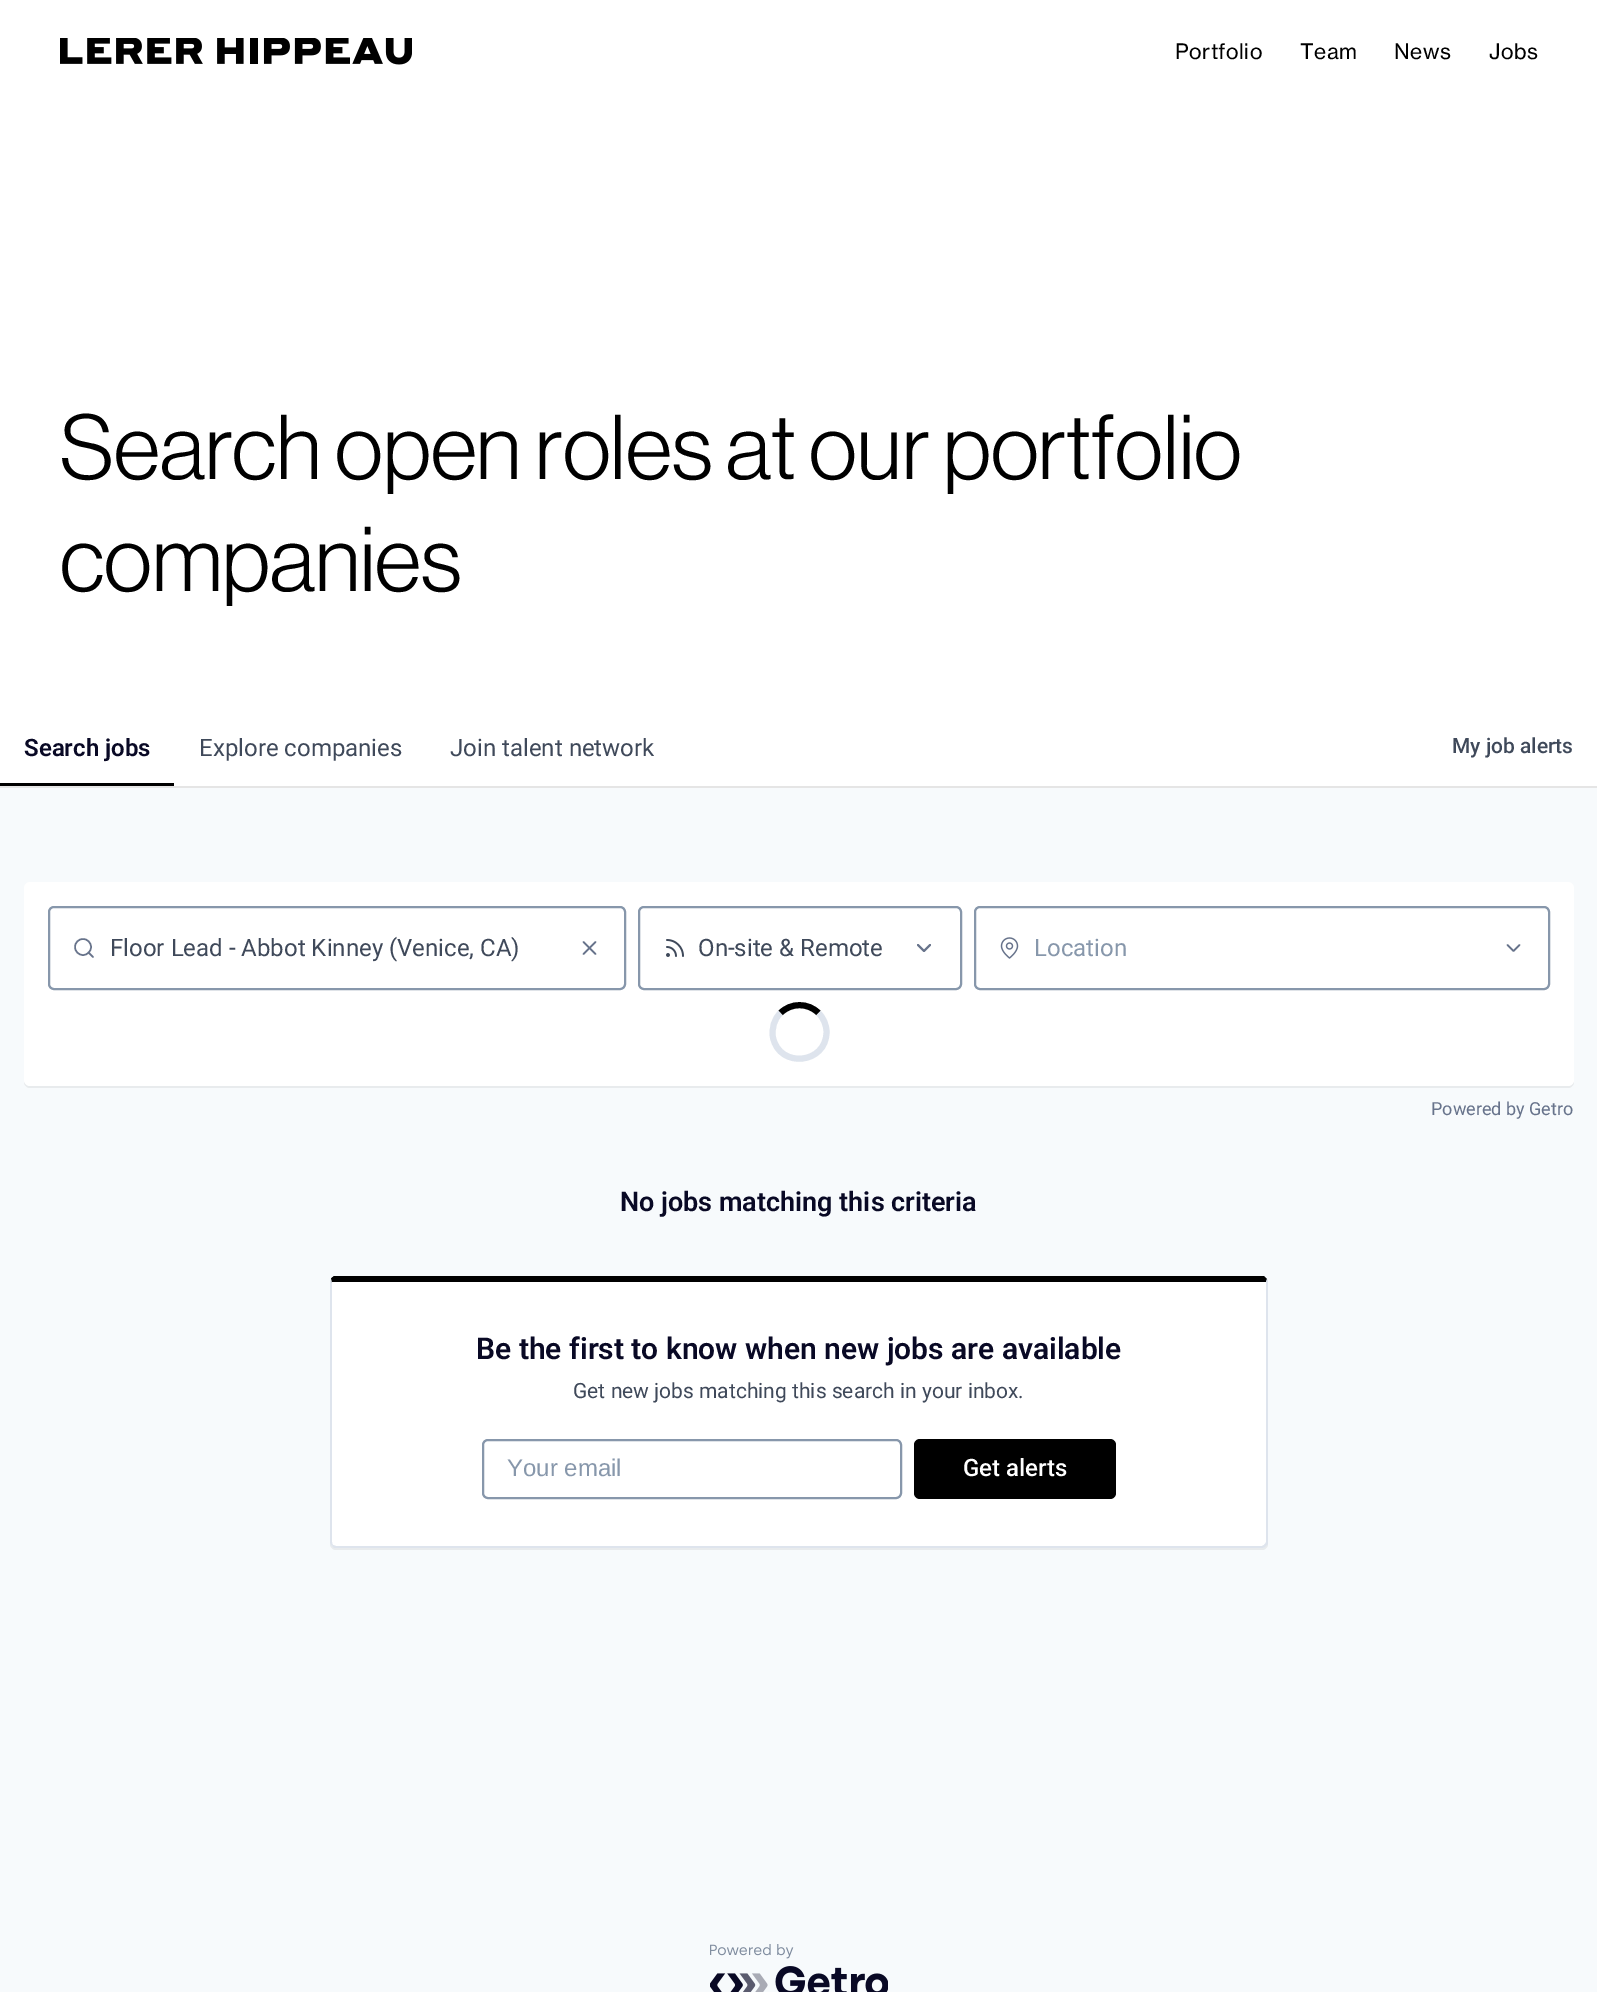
%!PS
<< /PageSize [1597 1992] >> setpagedevice
/rgb { 3 { 255 div 3 1 roll } repeat setrgbcolor } def
/font { [ exch dup neg 0 0 3 -1 roll 0 0 ] selectfont } def
/circle { newpath 0 360 arc closepath } def
/roundrect { 5 dict begin { /r /h /w /y /x } { exch def } forall
  x r add y moveto x w add y 2 copy h add r arct x w add y h add x 1 index r arct
  x y h add x y r arct x y 2 copy exch w add exch r arct closepath end } def
/picture { 5 dict begin { /h /w /y /x /name } { exch def } forall
  gsave x y translate w h scale
  w h 8 [w 0 0 h 0 0] name (r) file false 3 colorimage grestore end } def
0 1992 translate 1 -1 scale
4 setmiterlimit
247 250 252 rgb
0 0 1597 1992 rectfill
255 255 255 rgb
0 0 1597 786 rectfill
(img/1.rgb) 60 38 352 27 picture
229 229 229 rgb
0 786 moveto 0 788 lineto 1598 788 lineto 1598 711 lineto 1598 786 lineto closepath fill
0 0 0 rgb
0 783 174 3 rectfill
232 235 237 rgb
24 1080 moveto 24 1082 lineto 24 1085 27 1088 30 1088 curveto 1568 1088 lineto 1571 1088 1574 1085 1574 1082 curveto 1574 890 lineto 1573 888 lineto 1574 1080 lineto 1574 1083 1571 1086 1568 1086 curveto 30 1086 lineto 27 1086 24 1083 24 1080 curveto closepath fill
255 255 255 rgb
24 882 1550 204 6 roundrect fill
135 151 171 rgb
2 setlinewidth
49 907 576 82 5 roundrect stroke
103 115 139 rgb
1.5 setlinewidth
83 947 8 circle stroke
1 setlinecap
1 setlinejoin
93 957 moveto 88.5 952.5 lineto stroke
595.5 942 moveto 583.5 954 lineto 583.5 942 moveto 595.5 954 lineto stroke
135 151 171 rgb
2 setlinewidth
0 setlinecap
0 setlinejoin
639 907 322 82 5 roundrect stroke
(img/2.rgb) 666 939 18 18 picture
103 115 139 rgb
1 setlinecap
1 setlinejoin
918 945 moveto 924 951 lineto 930 945 lineto stroke
135 151 171 rgb
0 setlinecap
0 setlinejoin
975 907 574 82 5 roundrect stroke
(img/3.rgb) 1000 937 19 22 picture
103 115 139 rgb
1.5 setlinewidth
1 setlinecap
1 setlinejoin
1507.5 945 moveto 1513.5 951 lineto 1519.5 945 lineto stroke
0 0 0 rgb
6 setlinewidth
0 setlinecap
0 setlinejoin
780.5 1013 moveto 791 1002.5 808 1002.5 818.5 1013 curveto stroke
222 228 237 rgb
818.5 1013 moveto 823.5 1018 826.5 1025 826.5 1032 curveto 826.5 1064 779.5 1069 773 1037.5 curveto 771.5 1028.5 774 1019 780.5 1013 curveto stroke
232 235 237 rgb
330 1542 moveto 330 1544 lineto 330 1547 333 1550 336 1550 curveto 1262 1550 lineto 1265 1550 1268 1547 1268 1544 curveto 1268 1284 lineto 1267 1281 lineto 1268 1542 lineto 1268 1545 1265 1548 1262 1548 curveto 336 1548 lineto 333 1548 330 1545 330 1542 curveto closepath fill
255 255 255 rgb
336 1282 moveto 1266 1282 lineto 1266 1542 lineto 1266 1544 1264 1546 1262 1546 curveto 336 1546 lineto 334 1546 332 1544 332 1542 curveto 332 1282 lineto closepath fill
0 0 0 rgb
331 1279 moveto 331 1278 333 1277 334 1276 curveto 1264 1276 lineto 1267 1279 lineto 1266 1282 lineto 332 1282 lineto 332 1284 lineto closepath fill
222 228 237 rgb
1268 1544 moveto 1266 1546 lineto 1264 1545 lineto 1265 1544 1266 1543 1266 1542 curveto 1266 1282 lineto 1267 1279 lineto 1268 1280 lineto closepath fill
336 1548 moveto 1262 1548 lineto 1263 1548 1265 1547 1266 1546 curveto 1264 1545 lineto 1262 1546 lineto 336 1546 lineto 333 1545 lineto 332 1546 lineto 333 1547 334 1548 336 1548 curveto closepath fill
330 1282 moveto 330 1543 lineto 332 1546 lineto 333 1545 lineto 332 1544 332 1543 332 1542 curveto 332 1284 lineto 331 1279 lineto closepath fill
135 151 171 rgb
2 setlinewidth
483 1440 418 58 5 roundrect stroke
0 0 0 rgb
914 1439 202 60 6 roundrect fill
(img/4.rgb) 710 1944 178 48 picture
/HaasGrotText-Regular 21 font
1175 59 moveto 0.5 0 (Portfolio) ashow
1300 59 moveto 0.5 0 (Team) ashow
1394 59 moveto 0.5 0 (News) ashow
1489 59 moveto 0.5 0 (Jobs) ashow
/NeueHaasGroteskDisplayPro-Light 90 font
60 479 moveto (Search open roles at our portfolio) show
60 591 moveto (companies) show
/Roboto-SemiBold 24 font
9 9 37 rgb
24 756 moveto (Search jobs) show
/Roboto-Regular 24 font
63 73 90 rgb
199 756 moveto (Explore companies) show
450 756 moveto (Join talent network) show
/Roboto-Medium 21 font
1452 753 moveto (My job alerts) show
/Roboto-Regular 24 font
110 956 moveto (Floor Lead - Abbot Kinney \(Venice, CA\)) show
698 956 moveto (On-site & Remote) show
135 151 171 rgb
1034 956 moveto (Location) show
/Roboto-Regular 18 font
103 115 139 rgb
1431 1115 moveto (Powered by Getro) show
/Roboto-SemiBold 27 font
9 9 37 rgb
620 1211 moveto (No jobs matching this criteria) show
/Roboto-SemiBold 30 font
476 1359 moveto (Be the first to know when new jobs are available) show
/Roboto-Regular 21 font
63 73 90 rgb
573 1398 moveto (Get new jobs matching this search in your inbox.) show
/LiberationSans-Regular 24 font
135 151 171 rgb
507 1476 moveto (Your email) show
/Roboto-Medium 24 font
255 255 255 rgb
963 1476 moveto (Get alerts) show
showpage
